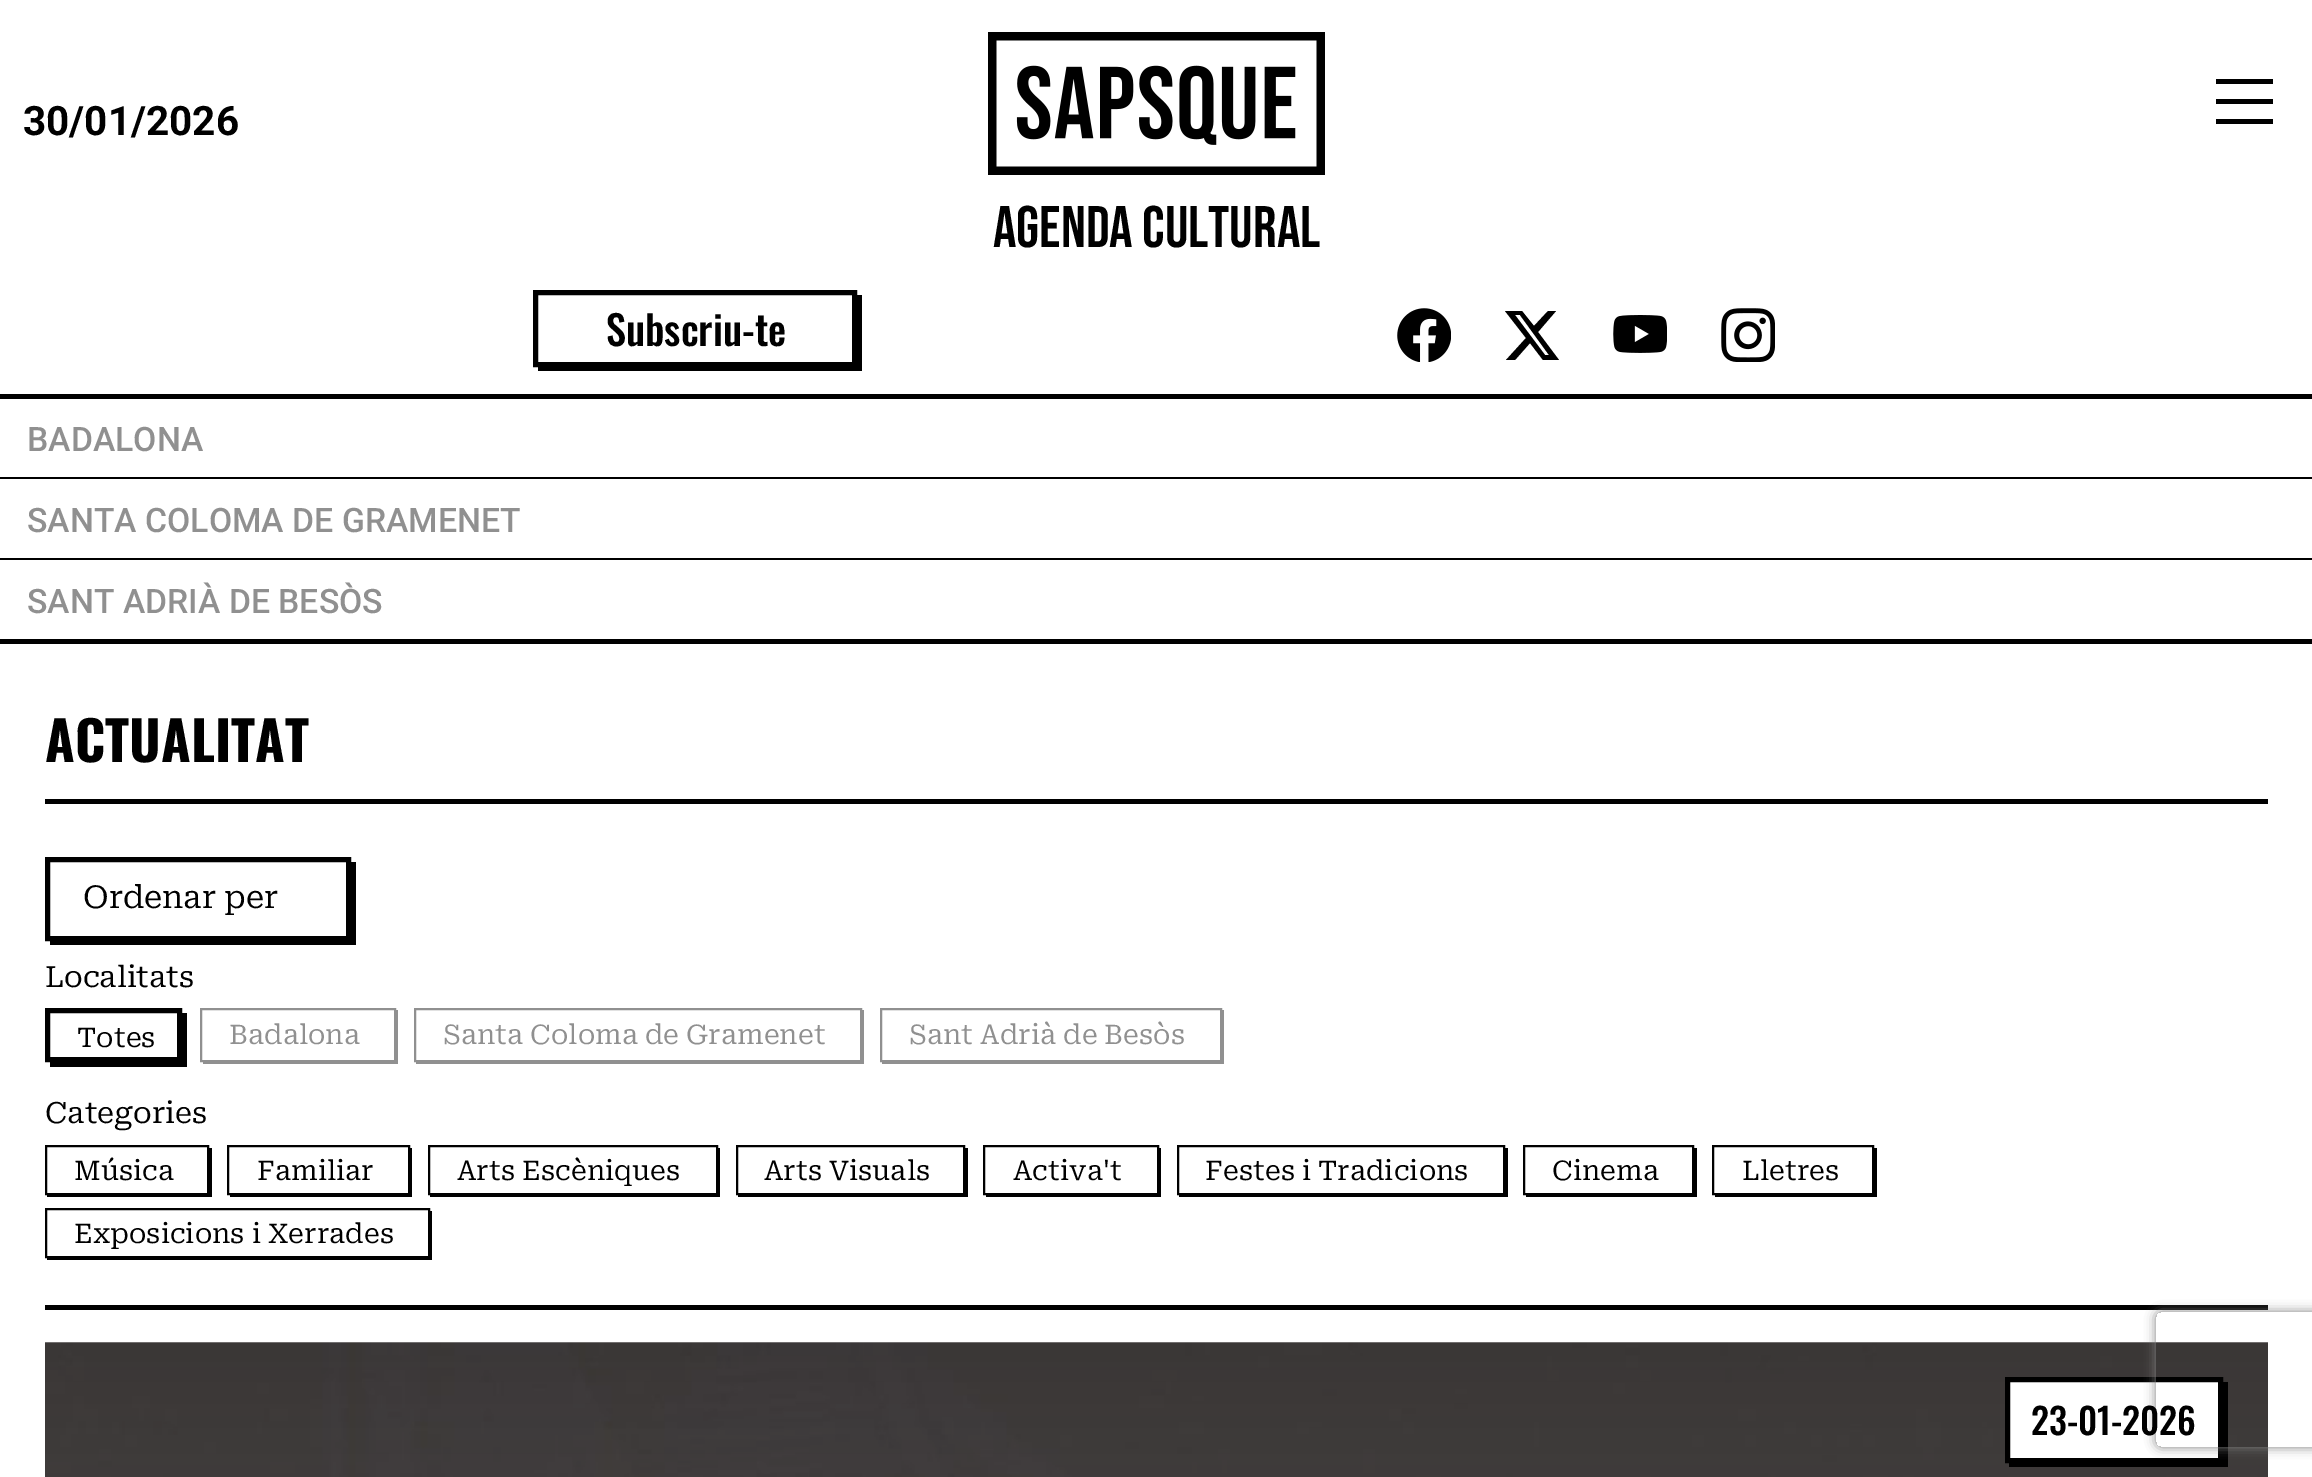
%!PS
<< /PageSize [2312 1477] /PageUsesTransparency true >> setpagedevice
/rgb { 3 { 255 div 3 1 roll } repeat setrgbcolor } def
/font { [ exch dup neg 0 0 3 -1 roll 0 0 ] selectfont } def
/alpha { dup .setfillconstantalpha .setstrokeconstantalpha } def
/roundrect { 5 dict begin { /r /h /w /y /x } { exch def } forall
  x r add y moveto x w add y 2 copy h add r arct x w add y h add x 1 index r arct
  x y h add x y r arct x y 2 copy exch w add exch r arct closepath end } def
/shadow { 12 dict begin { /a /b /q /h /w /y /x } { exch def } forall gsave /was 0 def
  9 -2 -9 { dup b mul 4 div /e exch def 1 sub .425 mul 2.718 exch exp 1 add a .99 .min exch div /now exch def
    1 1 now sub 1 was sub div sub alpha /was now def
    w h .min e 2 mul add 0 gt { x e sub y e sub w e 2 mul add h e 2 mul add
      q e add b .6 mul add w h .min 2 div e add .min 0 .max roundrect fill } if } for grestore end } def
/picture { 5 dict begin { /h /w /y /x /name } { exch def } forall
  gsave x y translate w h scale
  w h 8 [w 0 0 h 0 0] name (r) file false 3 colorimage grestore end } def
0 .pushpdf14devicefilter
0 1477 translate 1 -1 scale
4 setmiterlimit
255 255 255 rgb
0 0 2312 1477 rectfill
[
  [2216 79 57 5 0 0 0]
  [2216 99 57 5 0 0 0]
  [2216 119 57 5 0 0 0]
] { aload pop rgb rectfill } forall
(img/1.rgb) 988 32 337 143 picture
538 367 moveto 538 371 lineto 862 371 lineto 862 295 lineto 857 295 lineto 857 367 lineto closepath fill
5 setlinewidth
535.5 292.5 319 72 rectstroke
(img/2.rgb) 1397 308 54 54 picture
1548 311 moveto 1556 311 lineto 1538 332 lineto 1559 360 lineto 1543 360 lineto 1530 343 lineto 1515 360 lineto 1506 360 lineto 1526 338 lineto 1505 311 lineto 1522 311 lineto 1534 326 lineto closepath 1545 355 moveto 1549 355 lineto 1520 315 lineto 1515 315 lineto closepath fill
(img/3.rgb) 1613 315 54 38 picture
(img/4.rgb) 1721 308 54 54 picture
[
  [0 394 2312 5 0 0 0]
  [0 639 2312 5 0 0 0]
  [0 477 2312 2 0 0 0]
  [0 558 2312 2 0 0 0]
  [45 799 2223 5 0 0 0]
] { aload pop rgb rectfill } forall
50 940 moveto 50 945 lineto 356 945 lineto 356 862 lineto 351 862 lineto 351 940 lineto closepath fill
47.5 859.5 301 79 rectstroke
50 1062 moveto 50 1067 lineto 187 1067 lineto 187 1013 lineto 182 1013 lineto 182 1062 lineto closepath fill
47.5 1010.5 132 49 rectstroke
144 144 144 rgb
203 1062 moveto 203 1064 lineto 398 1064 lineto 398 1010 lineto 396 1010 lineto 396 1062 lineto closepath fill
2 setlinewidth
201 1009 194 52 rectstroke
416 1062 moveto 416 1064 lineto 864 1064 lineto 864 1010 lineto 862 1010 lineto 862 1062 lineto closepath fill
415 1009 446 52 rectstroke
882 1062 moveto 882 1064 lineto 1224 1064 lineto 1224 1010 lineto 1222 1010 lineto 1222 1062 lineto closepath fill
881 1009 340 52 rectstroke
0 0 0 rgb
47 1195 moveto 47 1197 lineto 212 1197 lineto 212 1148 lineto 209 1148 lineto 209 1195 lineto closepath fill
46 1146 162 48 rectstroke
230 1195 moveto 230 1197 lineto 412 1197 lineto 412 1148 lineto 410 1148 lineto 410 1195 lineto closepath fill
228 1146 181 48 rectstroke
430 1195 moveto 430 1197 lineto 720 1197 lineto 720 1148 lineto 718 1148 lineto 718 1195 lineto closepath fill
429 1146 288 48 rectstroke
738 1195 moveto 738 1197 lineto 968 1197 lineto 968 1148 lineto 965 1148 lineto 965 1195 lineto closepath fill
737 1146 227 48 rectstroke
986 1195 moveto 986 1197 lineto 1161 1197 lineto 1161 1148 lineto 1159 1148 lineto 1159 1195 lineto closepath fill
984 1146 174 48 rectstroke
1179 1195 moveto 1179 1197 lineto 1508 1197 lineto 1508 1148 lineto 1505 1148 lineto 1505 1195 lineto closepath fill
1178 1146 326 48 rectstroke
1526 1195 moveto 1526 1197 lineto 1697 1197 lineto 1697 1148 lineto 1694 1148 lineto 1694 1195 lineto closepath fill
1524 1146 169 48 rectstroke
1715 1195 moveto 1715 1197 lineto 1877 1197 lineto 1877 1148 lineto 1874 1148 lineto 1874 1195 lineto closepath fill
1713 1146 160 48 rectstroke
47 1258 moveto 47 1260 lineto 432 1260 lineto 432 1211 lineto 430 1211 lineto 430 1258 lineto closepath fill
46 1209 383 48 rectstroke
45 1305 2223 5 rectfill
(img/5.rgb) 45 1342 2223 135 picture
2009 1462 moveto 2009 1467 lineto 2228 1467 lineto 2228 1382 lineto 2223 1382 lineto 2223 1462 lineto closepath fill
255 255 255 rgb
2007.5 1379.5 moveto 2220.5 1379.5 lineto 2220.5 1460.5 lineto 2007.5 1460.5 lineto closepath gsave fill grestore
0 0 0 rgb
5 setlinewidth
stroke
gsave
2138 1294 moveto 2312 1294 lineto 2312 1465 lineto 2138 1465 lineto closepath 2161 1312 moveto 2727 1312 lineto 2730 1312 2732 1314 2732 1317 curveto 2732 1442 lineto 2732 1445 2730 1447 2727 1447 curveto 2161 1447 lineto 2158 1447 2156 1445 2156 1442 curveto 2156 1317 lineto 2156 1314 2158 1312 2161 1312 curveto closepath eoclip newpath
128 128 128 rgb
2156 1312 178 135 5 5.5 1 shadow
grestore
/Roboto-Bold 40.5 font
23 135 moveto (30/01/2026) show
/BebasNeue-Regular 58.5 font
993 247 moveto (Agenda Cultural) show
/Oswald-Medium 40.5 font
606 346 moveto (Subscriu-te) show
/Roboto-Medium 33.75 font
144 144 144 rgb
[
  [(BADALONA) 27 451]
  [(SANTA COLOMA DE GRAMENET) 27 532]
  [(SANT ADRIÀ DE BESÒS) 27 613]
] { aload pop moveto show } forall
/Oswald-Bold 54 font
0 0 0 rgb
45 762 moveto (ACTUALITAT) show
/RobotoSerif-Regular 31.5 font
83 908 moveto (Ordenar per) show
/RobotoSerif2-Regular 29.25 font
45 987 moveto (Localitats) show
/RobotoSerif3-Regular 27 font
77 1047 moveto (Totes) show
144 144 144 rgb
[
  [(Badalona) 229 1044]
  [(Santa Coloma de Gramenet) 443 1044]
  [(Sant Adrià de Besòs) 909 1044]
] { aload pop moveto show } forall
/RobotoSerif2-Regular 29.25 font
0 0 0 rgb
45 1123 moveto (Categories) show
/RobotoSerif3-Regular 27 font
[
  [(Música) 74 1180]
  [(Familiar) 257 1180]
  [(Arts Escèniques) 457 1180]
  [(Arts Visuals) 764 1180]
  [(Activa't) 1013 1180]
  [(Festes i Tradicions) 1205 1180]
  [(Cinema) 1552 1180]
  [(Lletres) 1742 1180]
  [(Exposicions i Xerrades) 74 1243]
] { aload pop moveto show } forall
/Oswald-Medium 36 font
2031 1435 moveto (23-01-2026) show
.poppdf14devicefilter showpage
